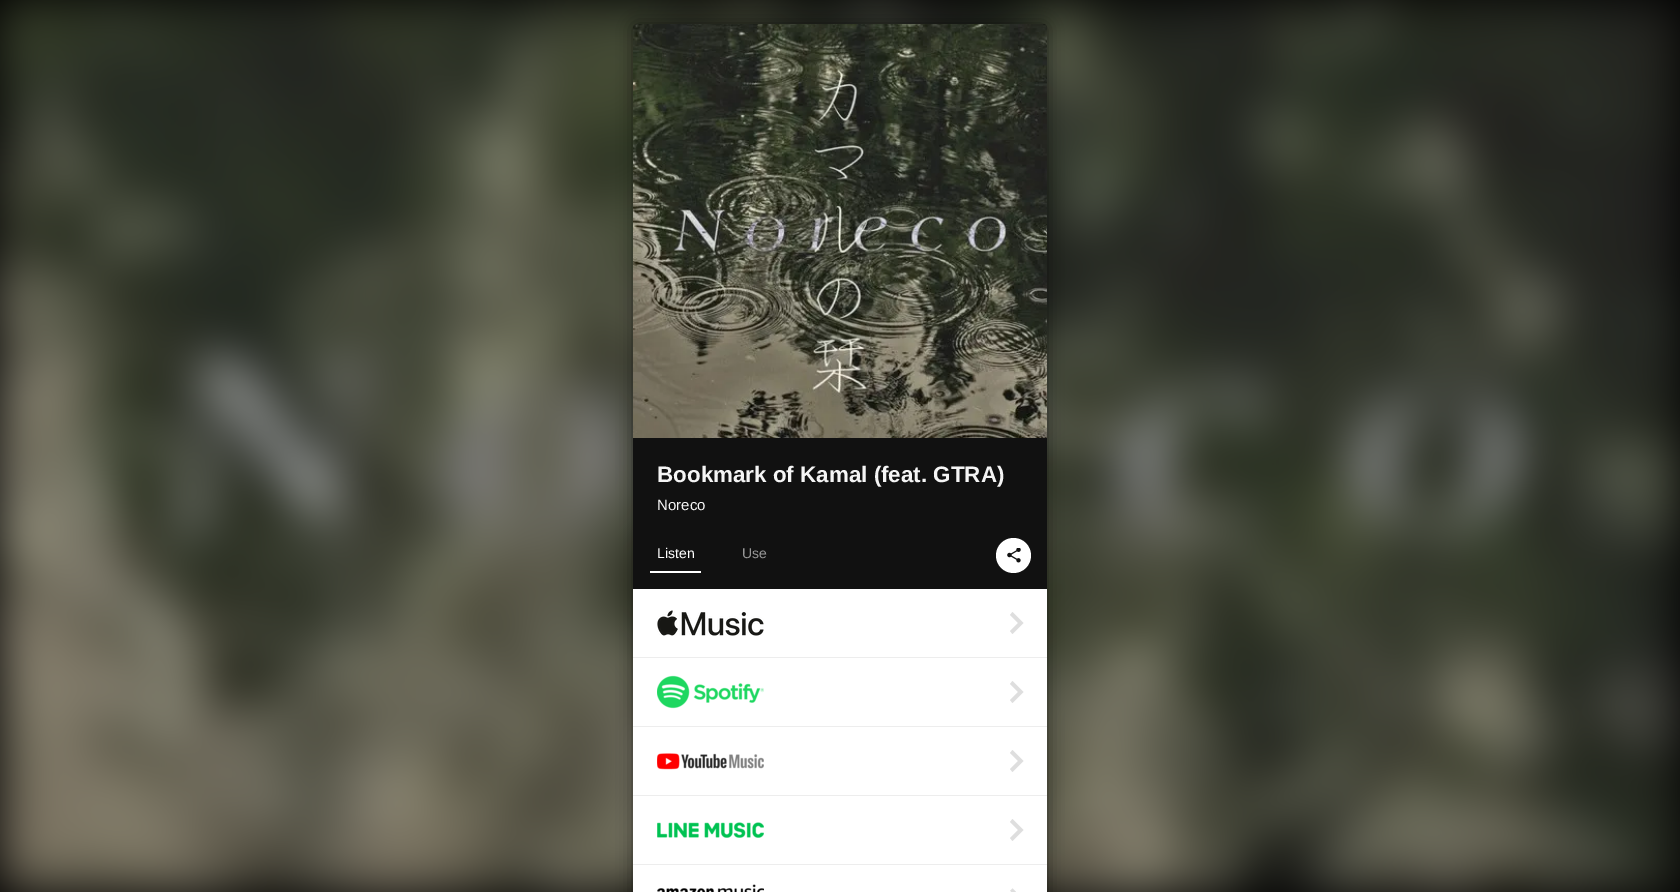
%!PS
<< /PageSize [1680 892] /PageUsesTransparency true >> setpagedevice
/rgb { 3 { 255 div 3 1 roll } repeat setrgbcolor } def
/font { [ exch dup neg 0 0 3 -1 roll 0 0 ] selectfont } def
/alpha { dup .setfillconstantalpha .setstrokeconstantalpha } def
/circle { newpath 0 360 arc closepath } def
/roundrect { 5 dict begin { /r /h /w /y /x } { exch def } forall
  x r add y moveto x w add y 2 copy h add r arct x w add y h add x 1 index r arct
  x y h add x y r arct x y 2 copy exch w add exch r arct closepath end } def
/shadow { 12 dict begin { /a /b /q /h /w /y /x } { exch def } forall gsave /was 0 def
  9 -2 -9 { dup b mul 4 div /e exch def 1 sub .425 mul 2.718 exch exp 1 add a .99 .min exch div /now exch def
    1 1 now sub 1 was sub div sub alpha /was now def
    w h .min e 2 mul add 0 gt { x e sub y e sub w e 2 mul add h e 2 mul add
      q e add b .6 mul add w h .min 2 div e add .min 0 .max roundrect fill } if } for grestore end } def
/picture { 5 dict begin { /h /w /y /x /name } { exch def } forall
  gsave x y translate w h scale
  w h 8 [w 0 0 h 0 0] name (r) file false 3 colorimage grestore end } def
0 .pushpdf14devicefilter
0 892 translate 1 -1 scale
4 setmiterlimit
0 0 0 rgb
0 0 1680 892 rectfill
(img/1.rgb) 0 0 1680 892 picture
633 24 414 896 4 8 0.47 shadow
(img/2.rgb) 633 24 414 414 picture
17 17 17 rgb
633 438 414 151 rectfill
255 255 255 rgb
650 571 51 2 rectfill
1013.5 555.5 17.5 circle fill
(img/3.rgb) 1007 548 14 15 picture
633 589 414 303 rectfill
(img/4.rgb) 657 610 107 26 picture
222 222 222 rgb
1010 631 moveto 1018 623 lineto 1010 615 lineto 1012.5 612 lineto 1023.5 623 lineto 1012.5 634 lineto closepath fill
237 237 237 rgb
633 657 414 1 rectfill
(img/5.rgb) 657 675 107 34 picture
222 222 222 rgb
1010 700 moveto 1018 692 lineto 1010 684 lineto 1012.5 681 lineto 1023.5 692 lineto 1012.5 703 lineto closepath fill
237 237 237 rgb
633 726 414 1 rectfill
(img/6.rgb) 657 753 107 17 picture
222 222 222 rgb
1010 769 moveto 1018 761 lineto 1010 753 lineto 1012.5 750 lineto 1023.5 761 lineto 1012.5 772 lineto closepath fill
237 237 237 rgb
633 795 414 1 rectfill
(img/7.rgb) 657 822 107 16 picture
222 222 222 rgb
1010 838 moveto 1018 830 lineto 1010 822 lineto 1012.5 819 lineto 1023.5 830 lineto 1012.5 841 lineto closepath fill
237 237 237 rgb
633 864 414 1 rectfill
(img/8.rgb) 657 884 107 8 picture
(img/9.rgb) 1010 888 6 4 picture
/LiberationSans-Bold 22.4 font
245 245 245 rgb
657 482 moveto (Bookmark of Kamal \(feat. GTRA\)) show
/LiberationSans-Regular 15 font
657 510 moveto (Noreco) show
/LiberationSans-Regular 14 font
255 255 255 rgb
657 558 moveto (Listen) show
150 150 150 rgb
742 558 moveto (Use) show
.poppdf14devicefilter showpage
